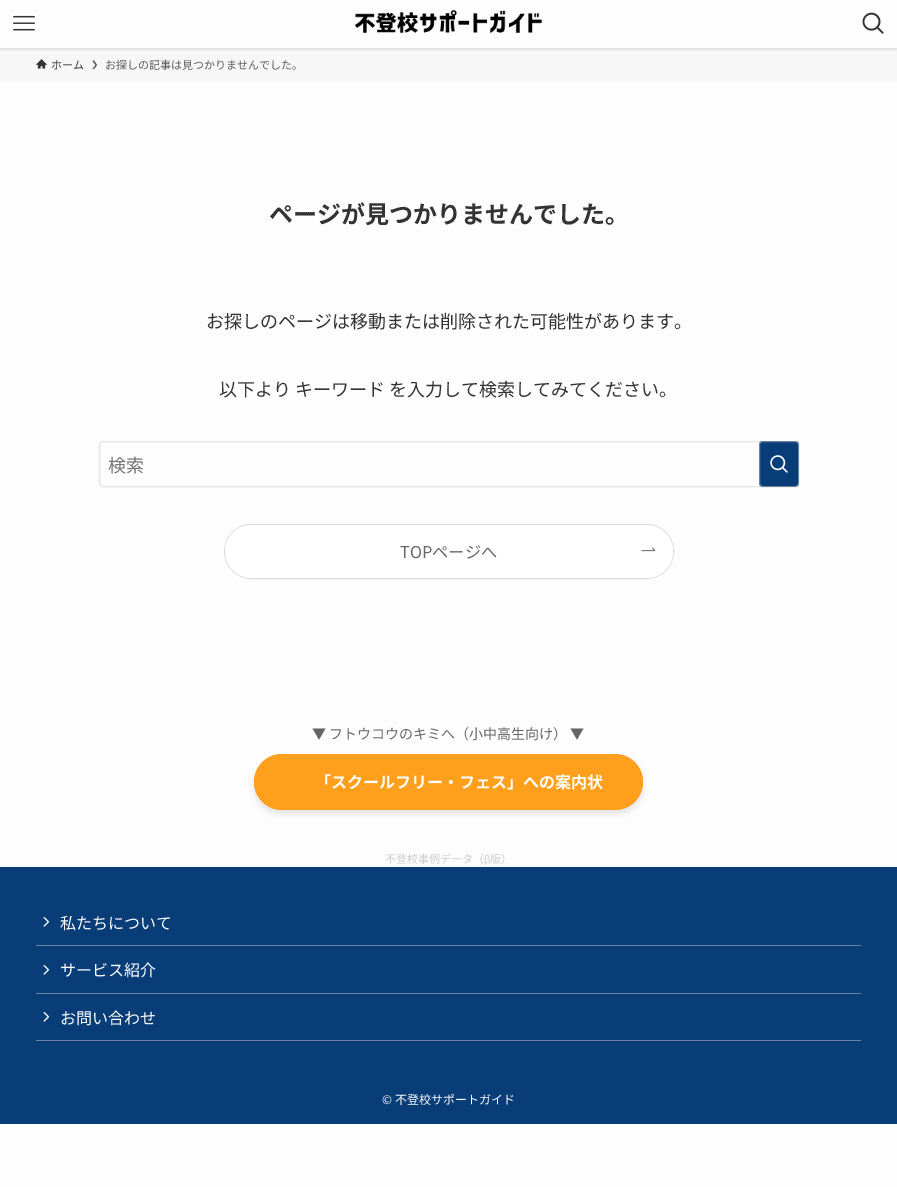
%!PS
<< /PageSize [897 1187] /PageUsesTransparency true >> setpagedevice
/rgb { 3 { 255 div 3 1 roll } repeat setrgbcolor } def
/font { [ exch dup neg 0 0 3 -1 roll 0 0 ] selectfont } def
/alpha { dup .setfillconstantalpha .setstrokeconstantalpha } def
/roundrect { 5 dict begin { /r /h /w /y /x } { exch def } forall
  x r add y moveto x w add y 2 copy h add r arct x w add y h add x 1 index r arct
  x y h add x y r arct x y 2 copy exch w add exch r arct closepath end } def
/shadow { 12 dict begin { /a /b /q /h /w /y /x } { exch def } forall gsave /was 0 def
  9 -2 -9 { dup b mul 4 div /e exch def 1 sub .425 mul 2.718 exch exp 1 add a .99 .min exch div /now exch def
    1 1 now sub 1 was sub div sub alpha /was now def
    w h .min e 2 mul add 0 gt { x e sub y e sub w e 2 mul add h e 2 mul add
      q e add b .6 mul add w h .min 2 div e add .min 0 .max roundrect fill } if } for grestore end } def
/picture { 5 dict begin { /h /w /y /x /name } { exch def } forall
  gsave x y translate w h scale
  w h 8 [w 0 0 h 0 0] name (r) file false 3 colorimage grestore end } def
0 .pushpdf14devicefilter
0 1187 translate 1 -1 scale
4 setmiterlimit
253 253 253 rgb
0 0 897 1187 rectfill
247 247 247 rgb
0 48 897 34 rectfill
gsave
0 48 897 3 rectclip
0 0 0 rgb
0 1 897 48 0 2 0.12 shadow
grestore
(img/1.rgb) 13 15 22 16 picture
(img/2.rgb) 354 10 189 23 picture
(img/3.rgb) 862 12 22 22 picture
(img/4.rgb) 36 59 11 10 picture
90 90 90 rgb
94 60.5 moveto 92.5 61 lineto 95.5 65 lineto 92.5 69 lineto 94 69 lineto 97 65 lineto closepath fill
227 227 227 rgb
99.5 441.5 699 45 3.5 roundrect stroke
8 61 119 rgb
759 441 40 46 4 roundrect fill
0.5 alpha
199 199 199 rgb
759.5 441.5 39 45 3.5 roundrect stroke
1 alpha
(img/5.rgb) 770 455 18 18 picture
220 220 220 rgb
224.5 524.5 449 54 27 roundrect stroke
255 255 255 rgb
225 525 448 53 26.5 roundrect fill
(img/6.rgb) 641 547 15 5 picture
0 0 0 rgb
254 758 389 56 28 3 0.1 shadow
255 159 28 rgb
254 754 389 56 28 roundrect fill
8 61 119 rgb
0 867 897 257 rectfill
104 130 159 rgb
36 945 825 1 rectfill
(img/7.rgb) 43 917 7 10 picture
36 993 825 1 rectfill
(img/7.rgb) 43 965 7 10 picture
36 1040 825 1 rectfill
(img/7.rgb) 43 1012 7 10 picture
/NotoSansJP-Regular 11 font
51 51 51 rgb
51 69 moveto (ホーム) show
90 90 90 rgb
105 69 moveto (お探しの記事は見つかりませんでした。) show
/NotoSansJP-Bold 24 font
51 51 51 rgb
269 223 moveto (ページが見つかりませんでした。) show
/NotoSansJP-Regular 18 font
206 328 moveto (お探しのページは移動または削除された可能性があります。) show
219 396 moveto (以下より キーワード を入力して検索してみてください。) show
117 117 117 rgb
108 472 moveto (検索) show
/NotoSansJP-Regular 16.25 font
102 102 102 rgb
400 558 moveto (TOPページへ) show
/NotoSansJP-Regular 14 font
312 739 moveto (▼ フトウコウのキミへ（小中高生向け） ▼) show
/NotoSansJP-Bold 16 font
255 255 255 rgb
315 788 moveto (「スクールフリー・フェス」への案内状) show
/NotoSansJP-Regular 11 font
204 204 204 rgb
385 863 moveto (不登校事例データ（) show
/LiberationSans-Regular 11 font
484 863 moveto (β) show
/NotoSansJP-Regular 11 font
490 863 moveto (版）) show
/NotoSansJP-Regular 16 font
255 255 255 rgb
[
  [(私たちについて) 60 929]
  [(サービス紹介) 60 976]
  [(お問い合わせ) 60 1024]
] { aload pop moveto show } forall
/NotoSansJP-Regular 12 font
382 1104 moveto (© 不登校サポートガイド) show
.poppdf14devicefilter showpage
